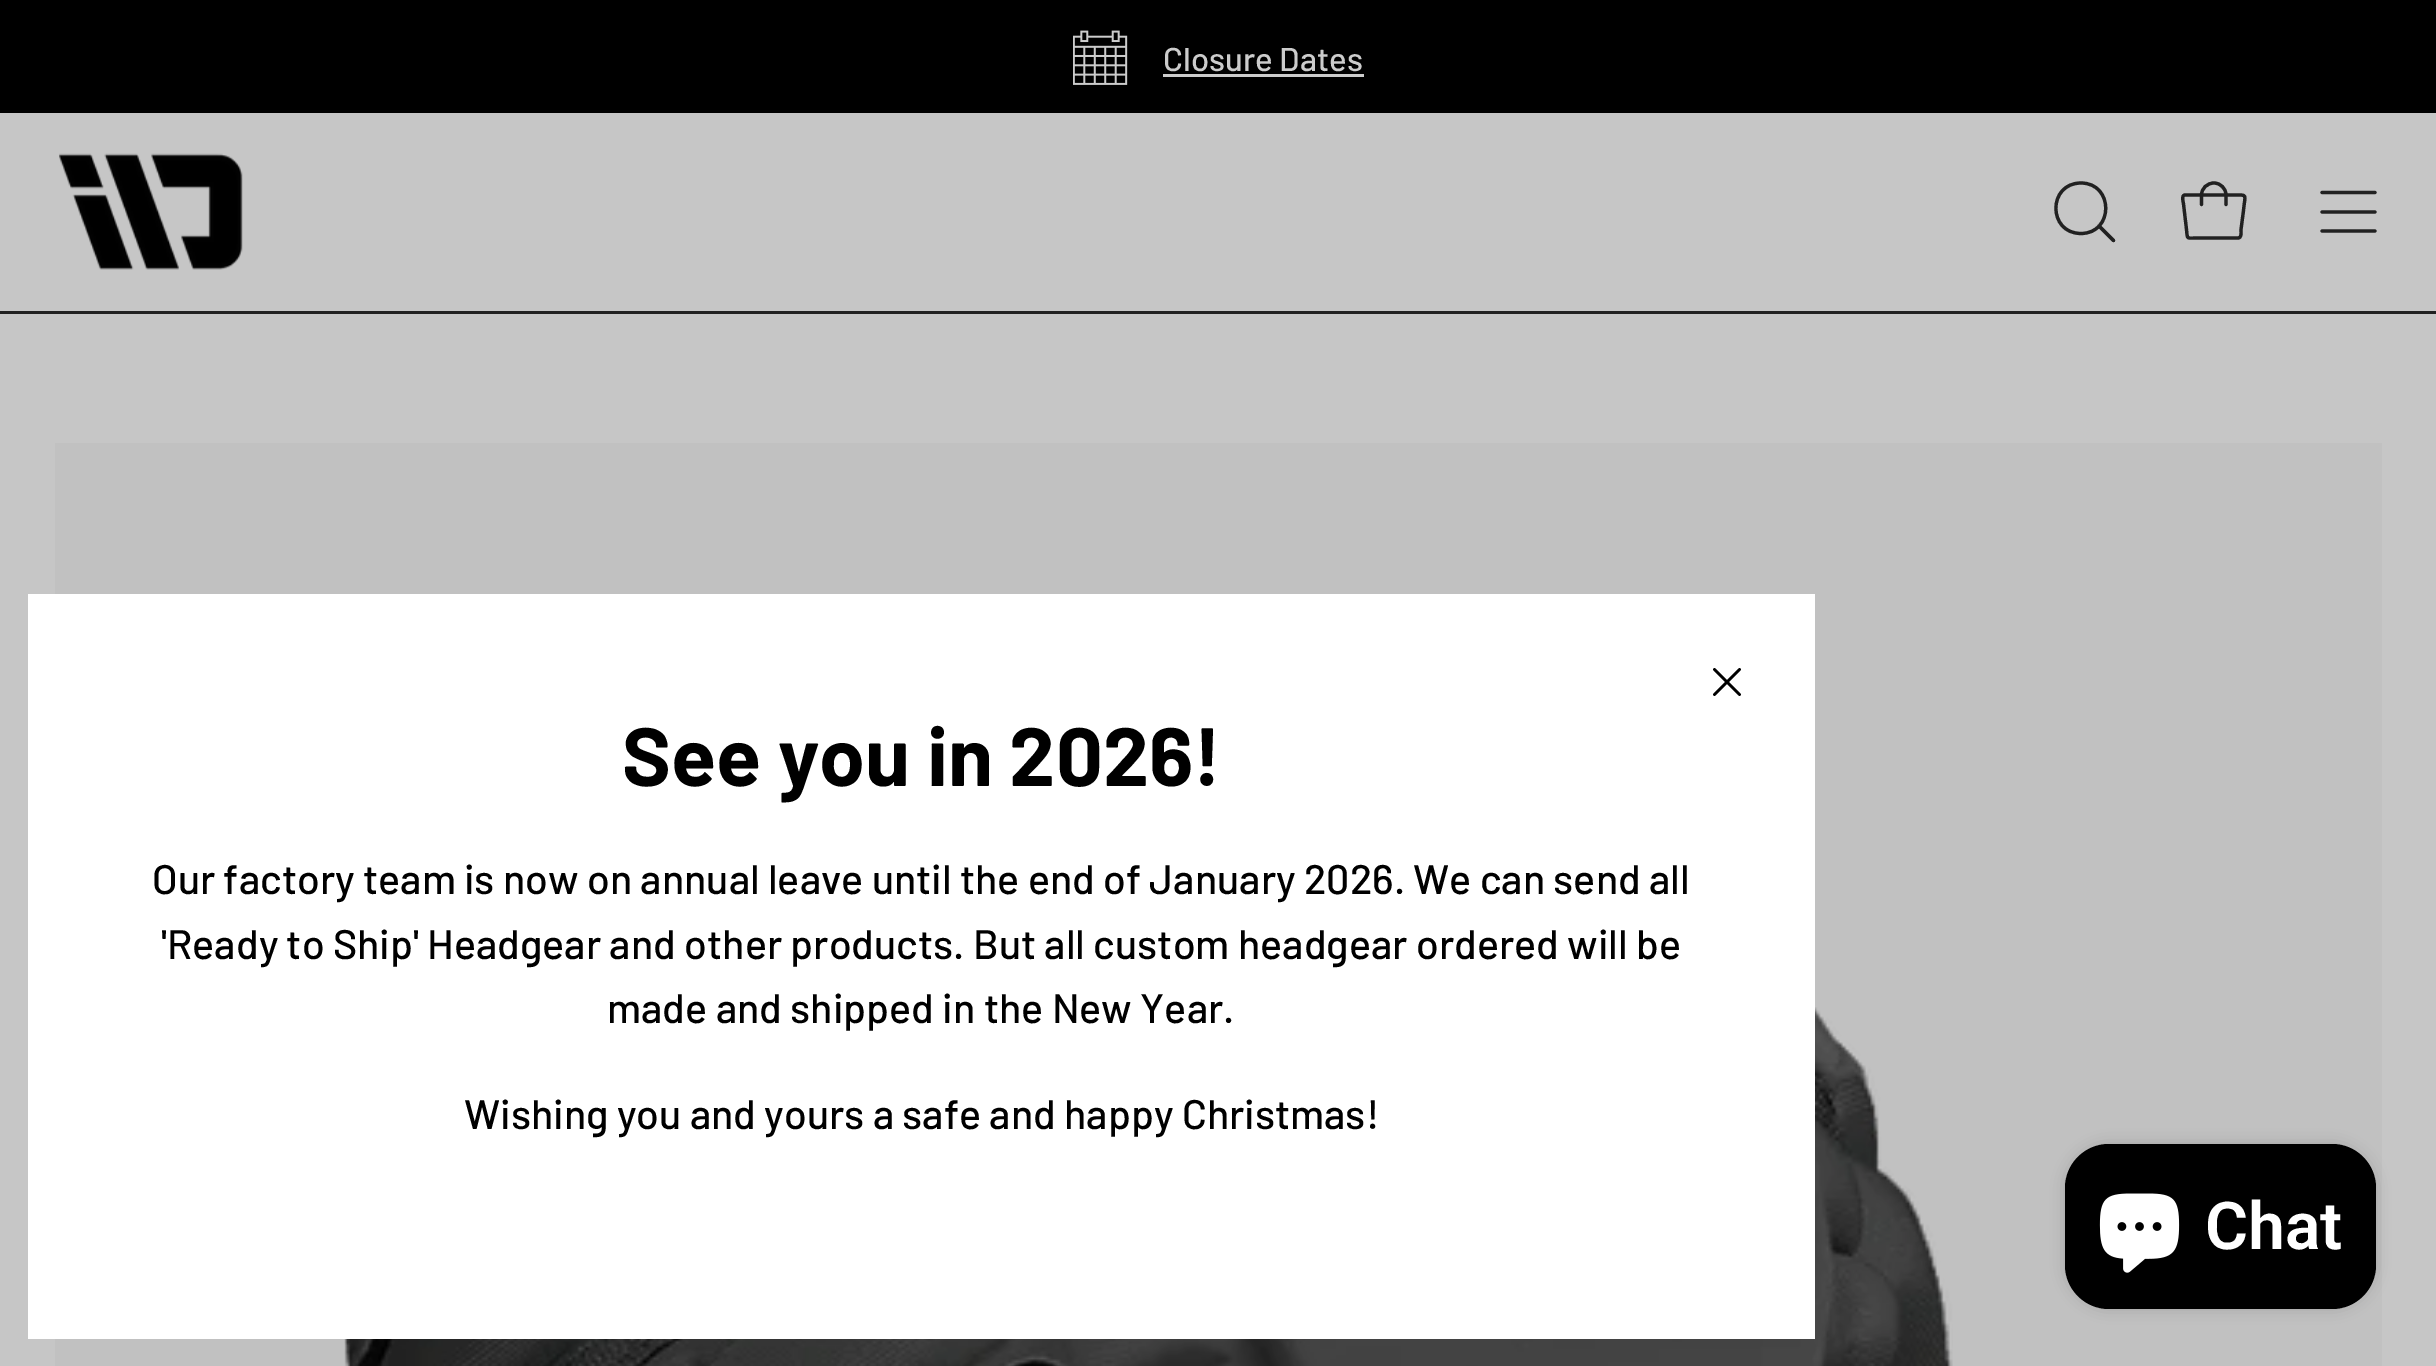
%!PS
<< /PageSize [2436 1366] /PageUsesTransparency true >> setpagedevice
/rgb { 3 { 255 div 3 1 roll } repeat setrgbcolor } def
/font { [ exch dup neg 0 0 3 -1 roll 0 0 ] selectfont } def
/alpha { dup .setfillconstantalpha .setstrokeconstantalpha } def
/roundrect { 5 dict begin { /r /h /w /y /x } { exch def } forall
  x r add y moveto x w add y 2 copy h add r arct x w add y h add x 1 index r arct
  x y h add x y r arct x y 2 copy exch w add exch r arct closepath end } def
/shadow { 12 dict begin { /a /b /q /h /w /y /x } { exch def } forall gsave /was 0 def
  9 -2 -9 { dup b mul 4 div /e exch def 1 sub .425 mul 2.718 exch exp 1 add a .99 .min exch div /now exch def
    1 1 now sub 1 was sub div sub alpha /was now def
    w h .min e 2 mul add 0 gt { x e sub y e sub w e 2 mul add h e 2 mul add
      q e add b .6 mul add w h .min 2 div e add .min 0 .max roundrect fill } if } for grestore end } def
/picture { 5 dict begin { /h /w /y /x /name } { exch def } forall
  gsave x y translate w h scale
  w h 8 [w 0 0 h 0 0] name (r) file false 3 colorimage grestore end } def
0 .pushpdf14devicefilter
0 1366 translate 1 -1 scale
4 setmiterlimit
198 198 198 rgb
0 0 2436 1366 rectfill
0 0 0 rgb
0 0 2436 113 rectfill
(img/1.rgb) 1073 30 55 55 picture
204 204 204 rgb
1163 74 201 3 rectfill
33 33 33 rgb
0 311 moveto 0 314 lineto 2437 314 lineto 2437 116 lineto 2436 116 lineto 2436 311 lineto closepath fill
(img/2.rgb) 59 153 184 117 picture
3.2 setlinewidth
1 setlinecap
1 setlinejoin
2081 233.5 moveto 2114 233.5 2114 183 2081 183 curveto 2047.5 183 2047.5 233.5 2081 233.5 curveto closepath 2099 226 moveto 2113.5 240.5 lineto stroke
2238 238 moveto 2197.5 238 lineto 2186.5 238 2187.5 240 2186.5 229.5 curveto 2183.5 204 lineto 2183.5 203 2181 195 2185 195 curveto 2233 195 lineto 2248.5 195 2245 193.5 2243.5 210.5 curveto 2241 229.5 lineto 2241 231 2242 238 2238 238 curveto closepath stroke
2201.5 204.5 moveto 2201.5 195 lineto 2201.5 188.5 2207 183 2214 183 curveto 2220.5 183 2226 188.5 2226 195 curveto 2226 204.5 lineto stroke
2322 212 moveto 2375 212 lineto 2322 192.5 moveto 2375 192.5 lineto 2322 231 moveto 2375 231 lineto stroke
193 193 193 rgb
55 443 2327 923 rectfill
(img/3.rgb) 344 1007 1609 359 picture
255 255 255 rgb
28 594 1787 745 rectfill
0 0 0 rgb
2.8 setlinewidth
1739.5 669.5 moveto 1714.5 694.5 lineto 1739.5 694.5 moveto 1714.5 669.5 lineto stroke
2065 1144 311 165 44 7 0.15 shadow
2065 1144 311 165 44 roundrect fill
(img/4.rgb) 2099 1193 81 80 picture
/Barlow-Medium 33 font
204 204 204 rgb
1163 71 moveto (Closure Dates) show
/Barlow-Bold 82.5 font
0 0 0 rgb
622 786 moveto (See you in 2026!) show
/Barlow-Medium 41.25 font
[
  [(Our factory team is now on annual leave until the end of January 2026. We can send all) 152 894]
  [('Ready to Ship' Headgear and other products. But all custom headgear ordered will be) 161 959]
  [(made and shipped in the New Year.) 607 1023]
  [(Wishing you and yours a safe and happy Christmas!) 464 1129]
] { aload pop moveto show } forall
/Roboto-SemiBold 66 font
255 255 255 rgb
2205 1249 moveto (Chat) show
.poppdf14devicefilter showpage
